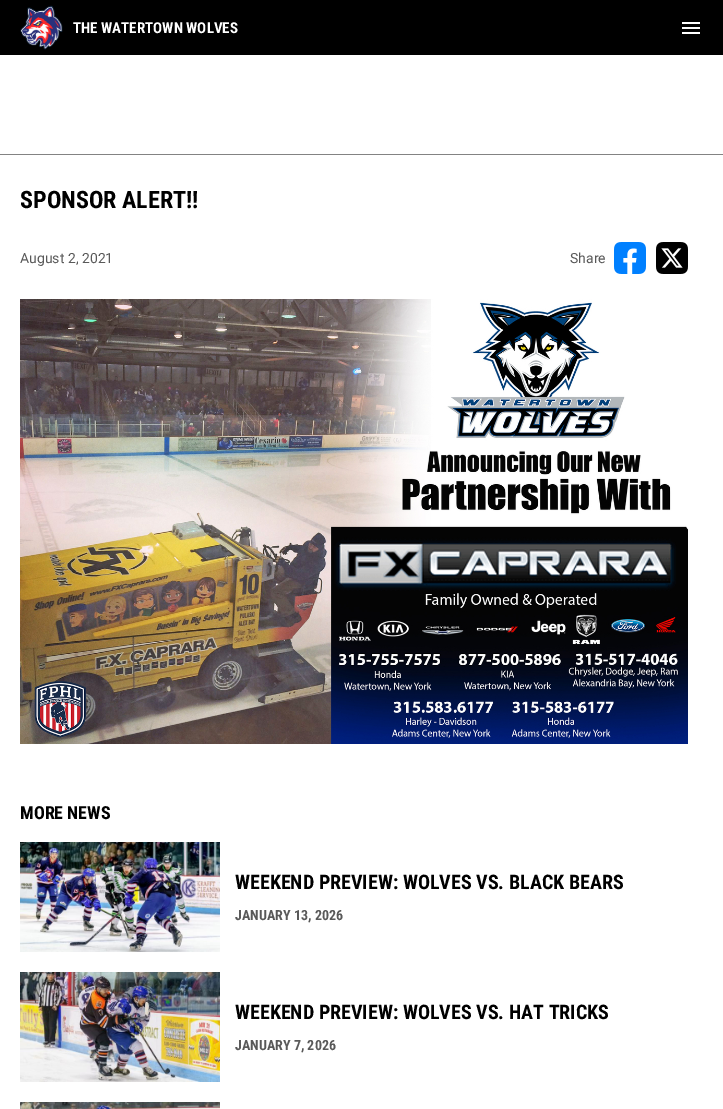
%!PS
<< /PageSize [723 1109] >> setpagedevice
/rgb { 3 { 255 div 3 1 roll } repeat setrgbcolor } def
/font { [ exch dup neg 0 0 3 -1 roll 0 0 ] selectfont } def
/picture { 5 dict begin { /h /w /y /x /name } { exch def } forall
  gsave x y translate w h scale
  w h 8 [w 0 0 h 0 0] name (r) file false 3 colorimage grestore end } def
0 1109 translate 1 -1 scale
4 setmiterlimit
255 255 255 rgb
0 0 723 1109 rectfill
0 0 0 rgb
0 0 723 55 rectfill
(img/1.rgb) 20 5 43 45 picture
(img/2.rgb) 682 22 18 12 picture
(img/3.rgb) 614 242 32 32 picture
(img/4.rgb) 656 242 32 32 picture
(img/5.rgb) 20 299 668 445 picture
(img/6.rgb) 20 842 200 110 picture
(img/7.rgb) 20 972 200 110 picture
(img/8.rgb) 20 1102 200 7 picture
131 131 131 rgb
0 154 723 1 rectfill
/RobotoCondensed-Bold 15 font
255 255 255 rgb
73 33 moveto (THE WATERTOWN WOLVES) show
/RobotoCondensed-Bold 24 font
0 0 0 rgb
20 208 moveto (SPONSOR ALERT!!) show
/Roboto-Regular 14 font
89 89 89 rgb
20 263 moveto (August 2, 2021) show
570 263 moveto (Share) show
/RobotoCondensed-Bold 18 font
0 0 0 rgb
20 819 moveto (MORE NEWS) show
/RobotoCondensed-Bold 20 font
235 889 moveto (WEEKEND PREVIEW: WOLVES VS. BLACK BEARS) show
/RobotoCondensed-Bold 14 font
89 89 89 rgb
235 920 moveto (JANUARY 13, 2026) show
/RobotoCondensed-Bold 20 font
0 0 0 rgb
235 1019 moveto (WEEKEND PREVIEW: WOLVES VS. HAT TRICKS) show
/RobotoCondensed-Bold 14 font
89 89 89 rgb
235 1050 moveto (JANUARY 7, 2026) show
showpage
